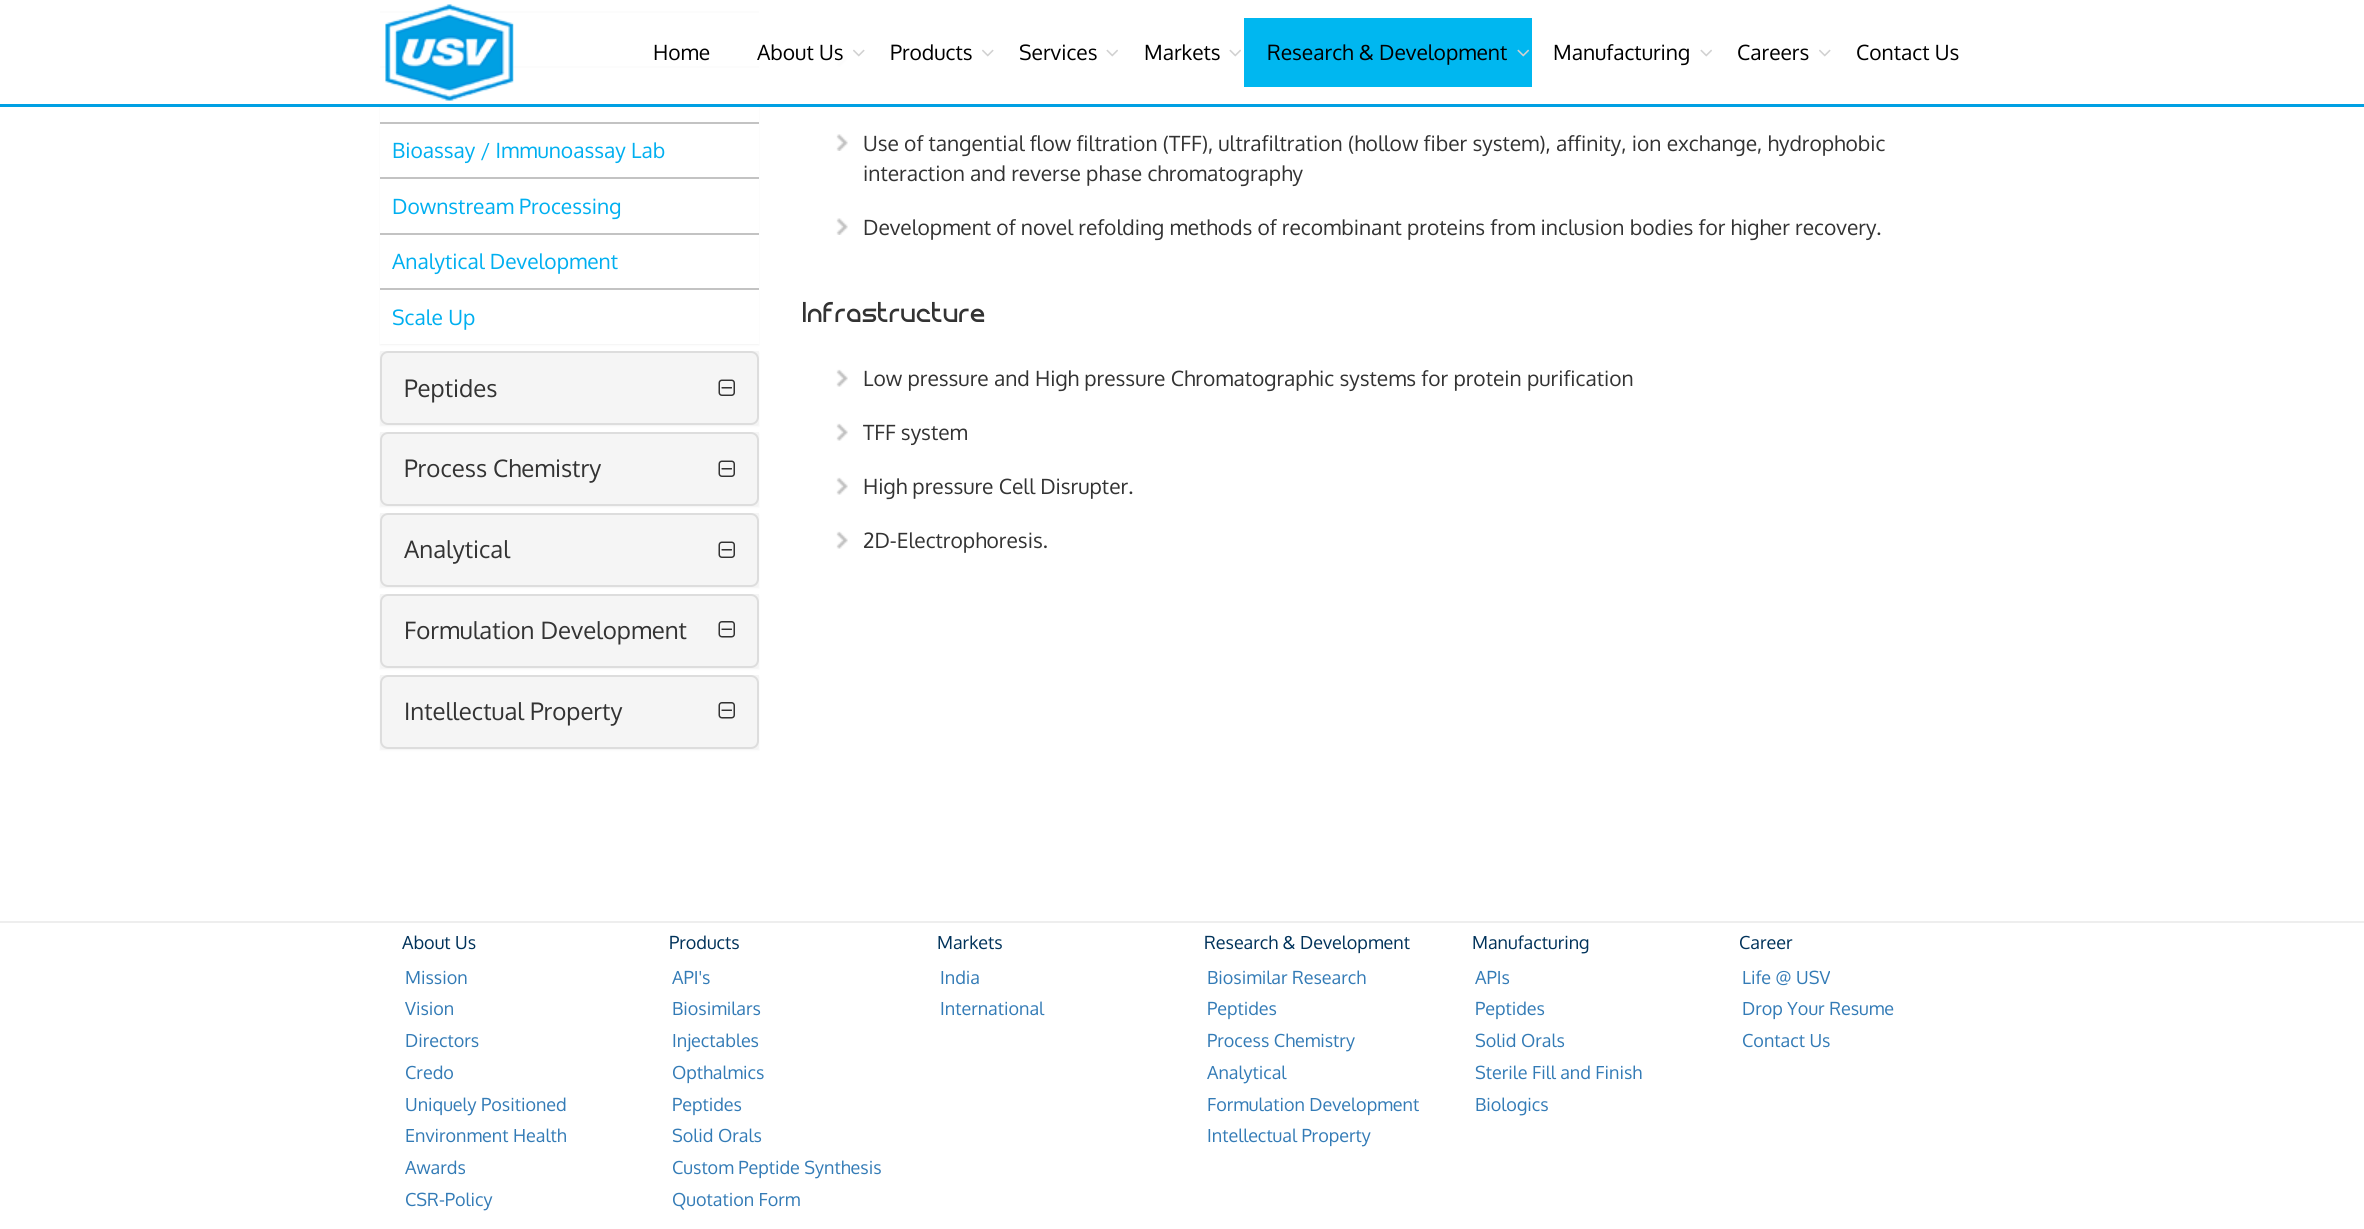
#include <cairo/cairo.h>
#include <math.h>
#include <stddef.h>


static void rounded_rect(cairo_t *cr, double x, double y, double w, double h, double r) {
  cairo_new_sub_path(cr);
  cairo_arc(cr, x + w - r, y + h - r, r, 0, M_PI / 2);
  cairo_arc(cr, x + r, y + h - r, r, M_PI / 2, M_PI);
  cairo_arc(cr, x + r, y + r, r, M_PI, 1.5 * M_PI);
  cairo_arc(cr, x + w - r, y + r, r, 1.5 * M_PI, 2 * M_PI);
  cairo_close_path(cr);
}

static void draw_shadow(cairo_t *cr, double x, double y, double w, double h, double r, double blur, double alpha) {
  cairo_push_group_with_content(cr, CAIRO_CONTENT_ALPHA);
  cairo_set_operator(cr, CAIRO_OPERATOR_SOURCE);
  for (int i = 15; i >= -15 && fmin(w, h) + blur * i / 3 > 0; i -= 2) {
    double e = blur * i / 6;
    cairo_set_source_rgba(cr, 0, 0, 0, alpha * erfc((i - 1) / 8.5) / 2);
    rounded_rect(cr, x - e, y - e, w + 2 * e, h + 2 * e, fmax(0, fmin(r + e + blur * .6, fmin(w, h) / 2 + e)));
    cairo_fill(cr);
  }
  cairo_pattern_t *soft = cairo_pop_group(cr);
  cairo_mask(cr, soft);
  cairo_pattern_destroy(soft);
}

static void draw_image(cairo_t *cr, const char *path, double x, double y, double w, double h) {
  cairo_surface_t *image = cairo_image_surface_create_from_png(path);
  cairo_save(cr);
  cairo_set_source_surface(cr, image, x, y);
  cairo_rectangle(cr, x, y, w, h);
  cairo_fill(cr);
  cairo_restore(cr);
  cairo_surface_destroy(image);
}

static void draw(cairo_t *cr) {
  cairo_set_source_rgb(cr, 1, 1, 1);
  cairo_paint(cr);
  cairo_set_source_rgb(cr, 0, 0, 0);
  draw_shadow(cr, 380, -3, 379, 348, 0, 1, 0.05);
  cairo_set_source_rgb(cr, 1, 1, 1);
  cairo_rectangle(cr, 380, 0, 379, 344);
  cairo_fill(cr);
  cairo_set_source_rgb(cr, 195 / 255.0, 195 / 255.0, 195 / 255.0);
  cairo_rectangle(cr, 380, 11, 379, 2);
  cairo_fill(cr);
  cairo_rectangle(cr, 380, 66, 379, 2);
  cairo_fill(cr);
  draw_image(cr, "images/11.png", 836, 50, 12, 17);
  cairo_set_source_rgba(cr, 1, 1, 1, 0.95);
  cairo_rectangle(cr, 379, 0, 469, 104);
  cairo_fill(cr);
  cairo_set_source_rgb(cr, 0, 160 / 255.0, 227 / 255.0);
  cairo_rectangle(cr, 0, 104, 2364, 3);
  cairo_fill(cr);
  draw_image(cr, "images/1.png", 385, 4, 129, 97);
  draw_image(cr, "images/2.png", 853, 49, 12, 8);
  draw_image(cr, "images/3.png", 982, 49, 12, 8);
  draw_image(cr, "images/4.png", 1106, 49, 12, 8);
  draw_image(cr, "images/5.png", 1229, 49, 12, 8);
  cairo_set_source_rgb(cr, 0, 183 / 255.0, 240 / 255.0);
  cairo_rectangle(cr, 1244, 18, 288, 69);
  cairo_fill(cr);
  draw_image(cr, "images/6.png", 1517, 49, 13, 8);
  draw_image(cr, "images/7.png", 1700, 49, 12, 8);
  draw_image(cr, "images/8.png", 1819, 49, 12, 8);
  cairo_set_source_rgb(cr, 195 / 255.0, 195 / 255.0, 195 / 255.0);
  cairo_rectangle(cr, 380, 122, 379, 2);
  cairo_fill(cr);
  cairo_rectangle(cr, 380, 177, 379, 2);
  cairo_fill(cr);
  cairo_rectangle(cr, 380, 233, 379, 2);
  cairo_fill(cr);
  cairo_rectangle(cr, 380, 288, 379, 2);
  cairo_fill(cr);
  cairo_set_source_rgb(cr, 0, 0, 0);
  draw_shadow(cr, 380, 353, 379, 73, 0, 1, 0.05);
  cairo_set_source_rgb(cr, 245 / 255.0, 245 / 255.0, 245 / 255.0);
  cairo_rectangle(cr, 380, 351, 379, 73);
  cairo_fill(cr);
  rounded_rect(cr, 381, 352, 377, 72, 7);
  cairo_set_source_rgb(cr, 221 / 255.0, 221 / 255.0, 221 / 255.0);
  cairo_stroke(cr);
  draw_image(cr, "images/9.png", 718, 379, 17, 17);
  cairo_set_source_rgb(cr, 0, 0, 0);
  draw_shadow(cr, 380, 434, 379, 73, 0, 1, 0.05);
  cairo_set_source_rgb(cr, 245 / 255.0, 245 / 255.0, 245 / 255.0);
  cairo_rectangle(cr, 380, 432, 379, 73);
  cairo_fill(cr);
  rounded_rect(cr, 381, 433, 377, 72, 7);
  cairo_set_source_rgb(cr, 221 / 255.0, 221 / 255.0, 221 / 255.0);
  cairo_stroke(cr);
  draw_image(cr, "images/9.png", 718, 460, 17, 17);
  cairo_set_source_rgb(cr, 0, 0, 0);
  draw_shadow(cr, 380, 515, 379, 73, 0, 1, 0.05);
  cairo_set_source_rgb(cr, 245 / 255.0, 245 / 255.0, 245 / 255.0);
  cairo_rectangle(cr, 380, 513, 379, 73);
  cairo_fill(cr);
  rounded_rect(cr, 381, 514, 377, 72, 7);
  cairo_set_source_rgb(cr, 221 / 255.0, 221 / 255.0, 221 / 255.0);
  cairo_stroke(cr);
  draw_image(cr, "images/9.png", 718, 541, 17, 17);
  cairo_set_source_rgb(cr, 0, 0, 0);
  draw_shadow(cr, 380, 596, 379, 73, 0, 1, 0.05);
  cairo_set_source_rgb(cr, 245 / 255.0, 245 / 255.0, 245 / 255.0);
  cairo_rectangle(cr, 380, 594, 379, 73);
  cairo_fill(cr);
  rounded_rect(cr, 381, 595, 377, 72, 7);
  cairo_set_source_rgb(cr, 221 / 255.0, 221 / 255.0, 221 / 255.0);
  cairo_stroke(cr);
  draw_image(cr, "images/10.png", 718, 621, 17, 17);
  cairo_set_source_rgb(cr, 0, 0, 0);
  draw_shadow(cr, 380, 677, 379, 73, 0, 1, 0.05);
  cairo_set_source_rgb(cr, 245 / 255.0, 245 / 255.0, 245 / 255.0);
  cairo_rectangle(cr, 380, 675, 379, 73);
  cairo_fill(cr);
  rounded_rect(cr, 381, 676, 377, 72, 7);
  cairo_set_source_rgb(cr, 221 / 255.0, 221 / 255.0, 221 / 255.0);
  cairo_stroke(cr);
  draw_image(cr, "images/10.png", 718, 702, 17, 17);
  draw_image(cr, "images/11.png", 836, 134, 12, 17);
  draw_image(cr, "images/11.png", 836, 218, 12, 17);
  draw_image(cr, "images/12.png", 836, 369, 12, 18);
  draw_image(cr, "images/12.png", 836, 423, 12, 18);
  draw_image(cr, "images/12.png", 836, 477, 12, 18);
  draw_image(cr, "images/12.png", 836, 531, 12, 18);
  cairo_set_source_rgb(cr, 238 / 255.0, 238 / 255.0, 238 / 255.0);
  cairo_rectangle(cr, 0, 921, 2364, 2);
  cairo_fill(cr);
  cairo_select_font_face(cr, "Oxygen", CAIRO_FONT_SLANT_NORMAL, CAIRO_FONT_WEIGHT_NORMAL);
  cairo_set_font_size(cr, 21);
  cairo_set_source_rgb(cr, 0, 0, 0);
  cairo_move_to(cr, 653, 60);
  cairo_show_text(cr, "Home");
  cairo_move_to(cr, 757, 60);
  cairo_show_text(cr, "About Us");
  cairo_move_to(cr, 890, 60);
  cairo_show_text(cr, "Products");
  cairo_move_to(cr, 1019, 60);
  cairo_show_text(cr, "Services");
  cairo_move_to(cr, 1144, 60);
  cairo_show_text(cr, "Markets");
  cairo_move_to(cr, 1267, 60);
  cairo_show_text(cr, "Research & Development");
  cairo_move_to(cr, 1553, 60);
  cairo_show_text(cr, "Manufacturing");
  cairo_move_to(cr, 1737, 60);
  cairo_show_text(cr, "Careers");
  cairo_move_to(cr, 1856, 60);
  cairo_show_text(cr, "Contact Us");
  cairo_set_source_rgb(cr, 0, 175 / 255.0, 240 / 255.0);
  cairo_move_to(cr, 392, 158);
  cairo_show_text(cr, "Bioassay / Immunoassay Lab");
  cairo_move_to(cr, 392, 214);
  cairo_show_text(cr, "Downstream Processing");
  cairo_move_to(cr, 392, 269);
  cairo_show_text(cr, "Analytical Development");
  cairo_move_to(cr, 392, 325);
  cairo_show_text(cr, "Scale Up");
  cairo_set_font_size(cr, 24);
  cairo_set_source_rgb(cr, 51 / 255.0, 51 / 255.0, 51 / 255.0);
  cairo_move_to(cr, 404, 397);
  cairo_show_text(cr, "Peptides");
  cairo_move_to(cr, 404, 477);
  cairo_show_text(cr, "Process Chemistry");
  cairo_move_to(cr, 404, 558);
  cairo_show_text(cr, "Analytical");
  cairo_move_to(cr, 404, 639);
  cairo_show_text(cr, "Formulation Development");
  cairo_move_to(cr, 404, 720);
  cairo_show_text(cr, "Intellectual Property");
  cairo_set_font_size(cr, 21);
  cairo_move_to(cr, 863, 151);
  cairo_show_text(cr, "Use of tangential flow filtration (TFF), ultrafiltration (hollow fiber system), affinity, ion exchange, hydrophobic");
  cairo_move_to(cr, 863, 181);
  cairo_show_text(cr, "interaction and reverse phase chromatography");
  cairo_move_to(cr, 863, 235);
  cairo_show_text(cr, "Development of novel refolding methods of recombinant proteins from inclusion bodies for higher recovery.");
  cairo_select_font_face(cr, "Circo", CAIRO_FONT_SLANT_NORMAL, CAIRO_FONT_WEIGHT_NORMAL);
  cairo_move_to(cr, 803, 322);
  cairo_show_text(cr, "Infrastructure");
  cairo_select_font_face(cr, "Oxygen", CAIRO_FONT_SLANT_NORMAL, CAIRO_FONT_WEIGHT_NORMAL);
  cairo_move_to(cr, 863, 386);
  cairo_show_text(cr, "Low pressure and High pressure Chromatographic systems for protein purification");
  cairo_move_to(cr, 863, 440);
  cairo_show_text(cr, "TFF system");
  cairo_move_to(cr, 863, 494);
  cairo_show_text(cr, "High pressure Cell Disrupter.");
  cairo_move_to(cr, 863, 548);
  cairo_show_text(cr, "2D-Electrophoresis.");
  cairo_set_font_size(cr, 18);
  cairo_set_source_rgb(cr, 0, 50 / 255.0, 90 / 255.0);
  cairo_move_to(cr, 402, 949);
  cairo_show_text(cr, "About Us");
  cairo_set_source_rgb(cr, 51 / 255.0, 123 / 255.0, 182 / 255.0);
  cairo_move_to(cr, 405, 984);
  cairo_show_text(cr, "Mission");
  cairo_move_to(cr, 405, 1015);
  cairo_show_text(cr, "Vision");
  cairo_move_to(cr, 405, 1047);
  cairo_show_text(cr, "Directors");
  cairo_move_to(cr, 405, 1079);
  cairo_show_text(cr, "Credo");
  cairo_move_to(cr, 405, 1111);
  cairo_show_text(cr, "Uniquely Positioned");
  cairo_move_to(cr, 405, 1142);
  cairo_show_text(cr, "Environment Health");
  cairo_move_to(cr, 405, 1174);
  cairo_show_text(cr, "Awards");
  cairo_move_to(cr, 405, 1206);
  cairo_show_text(cr, "CSR-Policy");
  cairo_set_source_rgb(cr, 0, 50 / 255.0, 90 / 255.0);
  cairo_move_to(cr, 669, 949);
  cairo_show_text(cr, "Products");
  cairo_set_source_rgb(cr, 51 / 255.0, 123 / 255.0, 182 / 255.0);
  cairo_move_to(cr, 672, 984);
  cairo_show_text(cr, "API's");
  cairo_move_to(cr, 672, 1015);
  cairo_show_text(cr, "Biosimilars");
  cairo_move_to(cr, 672, 1047);
  cairo_show_text(cr, "Injectables");
  cairo_move_to(cr, 672, 1079);
  cairo_show_text(cr, "Opthalmics");
  cairo_move_to(cr, 672, 1111);
  cairo_show_text(cr, "Peptides");
  cairo_move_to(cr, 672, 1142);
  cairo_show_text(cr, "Solid Orals");
  cairo_move_to(cr, 672, 1174);
  cairo_show_text(cr, "Custom Peptide Synthesis");
  cairo_move_to(cr, 672, 1206);
  cairo_show_text(cr, "Quotation Form");
  cairo_set_source_rgb(cr, 0, 50 / 255.0, 90 / 255.0);
  cairo_move_to(cr, 937, 949);
  cairo_show_text(cr, "Markets");
  cairo_set_source_rgb(cr, 51 / 255.0, 123 / 255.0, 182 / 255.0);
  cairo_move_to(cr, 940, 984);
  cairo_show_text(cr, "India");
  cairo_move_to(cr, 940, 1015);
  cairo_show_text(cr, "International");
  cairo_set_source_rgb(cr, 0, 50 / 255.0, 90 / 255.0);
  cairo_move_to(cr, 1204, 949);
  cairo_show_text(cr, "Research & Development");
  cairo_set_source_rgb(cr, 51 / 255.0, 123 / 255.0, 182 / 255.0);
  cairo_move_to(cr, 1207, 984);
  cairo_show_text(cr, "Biosimilar Research");
  cairo_move_to(cr, 1207, 1015);
  cairo_show_text(cr, "Peptides");
  cairo_move_to(cr, 1207, 1047);
  cairo_show_text(cr, "Process Chemistry");
  cairo_move_to(cr, 1207, 1079);
  cairo_show_text(cr, "Analytical");
  cairo_move_to(cr, 1207, 1111);
  cairo_show_text(cr, "Formulation Development");
  cairo_move_to(cr, 1207, 1142);
  cairo_show_text(cr, "Intellectual Property");
  cairo_set_source_rgb(cr, 0, 50 / 255.0, 90 / 255.0);
  cairo_move_to(cr, 1472, 949);
  cairo_show_text(cr, "Manufacturing");
  cairo_set_source_rgb(cr, 51 / 255.0, 123 / 255.0, 182 / 255.0);
  cairo_move_to(cr, 1475, 984);
  cairo_show_text(cr, "APIs");
  cairo_move_to(cr, 1475, 1015);
  cairo_show_text(cr, "Peptides");
  cairo_move_to(cr, 1475, 1047);
  cairo_show_text(cr, "Solid Orals");
  cairo_move_to(cr, 1475, 1079);
  cairo_show_text(cr, "Sterile Fill and Finish");
  cairo_move_to(cr, 1475, 1111);
  cairo_show_text(cr, "Biologics");
  cairo_set_source_rgb(cr, 0, 50 / 255.0, 90 / 255.0);
  cairo_move_to(cr, 1739, 949);
  cairo_show_text(cr, "Career");
  cairo_set_source_rgb(cr, 51 / 255.0, 123 / 255.0, 182 / 255.0);
  cairo_move_to(cr, 1742, 984);
  cairo_show_text(cr, "Life @ USV");
  cairo_move_to(cr, 1742, 1015);
  cairo_show_text(cr, "Drop Your Resume");
  cairo_move_to(cr, 1742, 1047);
  cairo_show_text(cr, "Contact Us");
}

int main(void) {
  cairo_surface_t *surface = cairo_image_surface_create(CAIRO_FORMAT_RGB24, 2364, 1229);
  cairo_t *cr = cairo_create(surface);
  cairo_font_options_t *options = cairo_font_options_create();
  cairo_font_options_set_hint_metrics(options, CAIRO_HINT_METRICS_OFF);
  cairo_font_options_set_hint_style(options, CAIRO_HINT_STYLE_NONE);
  cairo_set_font_options(cr, options);
  cairo_set_miter_limit(cr, 4);
  draw(cr);
  cairo_surface_write_to_png(surface, "out.png");
  cairo_font_options_destroy(options);
  cairo_destroy(cr);
  cairo_surface_destroy(surface);
  return 0;
}
